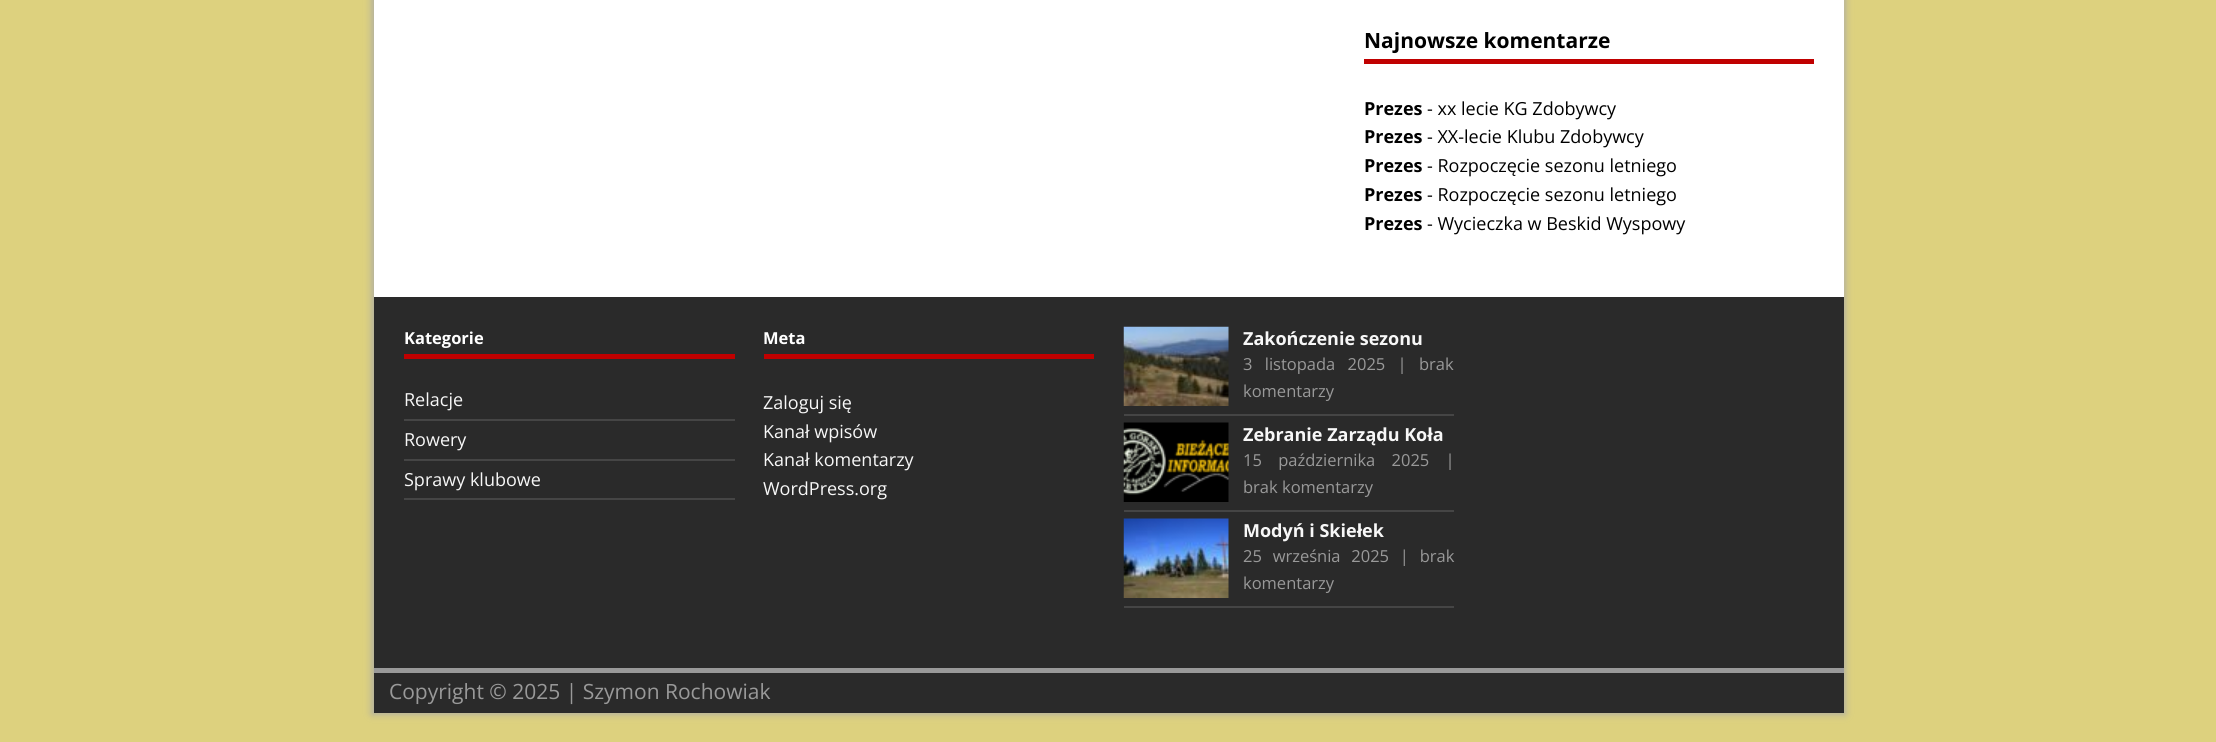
#include <cairo/cairo.h>
#include <math.h>
#include <stddef.h>


static void draw_spaced(cairo_t *cr, double x, double y, const char *s, double letter, double word) {
  cairo_move_to(cr, x, y);
  while (*s) {
    char ch[5] = {0};
    int n = 0;
    do ch[n++] = *s++; while ((*s & 0xC0) == 0x80);
    cairo_show_text(cr, ch);
    cairo_rel_move_to(cr, letter + word * (*ch == ' '), 0);
  }
}

static void rounded_rect(cairo_t *cr, double x, double y, double w, double h, double r) {
  cairo_new_sub_path(cr);
  cairo_arc(cr, x + w - r, y + h - r, r, 0, M_PI / 2);
  cairo_arc(cr, x + r, y + h - r, r, M_PI / 2, M_PI);
  cairo_arc(cr, x + r, y + r, r, M_PI, 1.5 * M_PI);
  cairo_arc(cr, x + w - r, y + r, r, 1.5 * M_PI, 2 * M_PI);
  cairo_close_path(cr);
}

static void draw_shadow(cairo_t *cr, double x, double y, double w, double h, double r, double blur, double alpha) {
  cairo_push_group_with_content(cr, CAIRO_CONTENT_ALPHA);
  cairo_set_operator(cr, CAIRO_OPERATOR_SOURCE);
  for (int i = 15; i >= -15 && fmin(w, h) + blur * i / 3 > 0; i -= 2) {
    double e = blur * i / 6;
    cairo_set_source_rgba(cr, 0, 0, 0, alpha * erfc((i - 1) / 8.5) / 2);
    rounded_rect(cr, x - e, y - e, w + 2 * e, h + 2 * e, fmax(0, fmin(r + e + blur * .6, fmin(w, h) / 2 + e)));
    cairo_fill(cr);
  }
  cairo_pattern_t *soft = cairo_pop_group(cr);
  cairo_mask(cr, soft);
  cairo_pattern_destroy(soft);
}

static void draw_image(cairo_t *cr, const char *path, double x, double y, double w, double h) {
  cairo_surface_t *image = cairo_image_surface_create_from_png(path);
  cairo_save(cr);
  cairo_set_source_surface(cr, image, x, y);
  cairo_rectangle(cr, x, y, w, h);
  cairo_fill(cr);
  cairo_restore(cr);
  cairo_surface_destroy(image);
}

static void draw(cairo_t *cr) {
  cairo_set_source_rgb(cr, 221 / 255.0, 209 / 255.0, 126 / 255.0);
  cairo_paint(cr);
  cairo_set_source_rgb(cr, 168 / 255.0, 168 / 255.0, 168 / 255.0);
  draw_shadow(cr, 372, -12, 1473, 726, 0, 4, 1);
  cairo_set_source_rgb(cr, 1, 1, 1);
  cairo_rectangle(cr, 374, 0, 1470, 297);
  cairo_fill(cr);
  cairo_set_source_rgb(cr, 192 / 255.0, 0, 0);
  cairo_rectangle(cr, 1364, 59, 450, 5);
  cairo_fill(cr);
  cairo_set_source_rgb(cr, 42 / 255.0, 42 / 255.0, 42 / 255.0);
  cairo_rectangle(cr, 374, 297, 1470, 371);
  cairo_fill(cr);
  cairo_set_source_rgb(cr, 192 / 255.0, 0, 0);
  cairo_rectangle(cr, 404, 354, 331, 5);
  cairo_fill(cr);
  cairo_set_source_rgb(cr, 69 / 255.0, 69 / 255.0, 69 / 255.0);
  cairo_rectangle(cr, 404, 419, 331, 2);
  cairo_fill(cr);
  cairo_rectangle(cr, 404, 459, 331, 2);
  cairo_fill(cr);
  cairo_rectangle(cr, 404, 498, 331, 2);
  cairo_fill(cr);
  cairo_set_source_rgb(cr, 192 / 255.0, 0, 0);
  cairo_rectangle(cr, 764, 354, 330, 5);
  cairo_fill(cr);
  cairo_set_source_rgb(cr, 69 / 255.0, 69 / 255.0, 69 / 255.0);
  cairo_rectangle(cr, 1124, 414, 330, 2);
  cairo_fill(cr);
  draw_image(cr, "images/1.png", 1123, 326, 106, 80);
  cairo_rectangle(cr, 1124, 510, 330, 2);
  cairo_fill(cr);
  draw_image(cr, "images/2.png", 1123, 422, 106, 80);
  cairo_rectangle(cr, 1124, 606, 330, 2);
  cairo_fill(cr);
  draw_image(cr, "images/3.png", 1123, 518, 106, 80);
  cairo_set_source_rgb(cr, 42 / 255.0, 42 / 255.0, 42 / 255.0);
  cairo_rectangle(cr, 374, 673, 1470, 40);
  cairo_fill(cr);
  cairo_set_source_rgb(cr, 153 / 255.0, 153 / 255.0, 153 / 255.0);
  cairo_rectangle(cr, 374, 668, 1470, 5);
  cairo_fill(cr);
  cairo_select_font_face(cr, "Open Sans", CAIRO_FONT_SLANT_NORMAL, CAIRO_FONT_WEIGHT_BOLD);
  cairo_set_font_size(cr, 21);
  cairo_set_source_rgb(cr, 0, 0, 0);
  cairo_move_to(cr, 1364, 48);
  cairo_show_text(cr, "Najnowsze komentarze");
  cairo_set_font_size(cr, 18);
  cairo_move_to(cr, 1364, 115);
  cairo_show_text(cr, "Prezes");
  cairo_select_font_face(cr, "Open Sans", CAIRO_FONT_SLANT_NORMAL, CAIRO_FONT_WEIGHT_NORMAL);
  cairo_move_to(cr, 1427, 115);
  cairo_show_text(cr, "- xx lecie KG Zdobywcy");
  cairo_select_font_face(cr, "Open Sans", CAIRO_FONT_SLANT_NORMAL, CAIRO_FONT_WEIGHT_BOLD);
  cairo_move_to(cr, 1364, 143);
  cairo_show_text(cr, "Prezes");
  cairo_select_font_face(cr, "Open Sans", CAIRO_FONT_SLANT_NORMAL, CAIRO_FONT_WEIGHT_NORMAL);
  cairo_move_to(cr, 1427, 143);
  cairo_show_text(cr, "- XX-lecie Klubu Zdobywcy");
  cairo_select_font_face(cr, "Open Sans", CAIRO_FONT_SLANT_NORMAL, CAIRO_FONT_WEIGHT_BOLD);
  cairo_move_to(cr, 1364, 172);
  cairo_show_text(cr, "Prezes");
  cairo_select_font_face(cr, "Open Sans", CAIRO_FONT_SLANT_NORMAL, CAIRO_FONT_WEIGHT_NORMAL);
  cairo_move_to(cr, 1427, 172);
  cairo_show_text(cr, "- Rozpoczęcie sezonu letniego");
  cairo_select_font_face(cr, "Open Sans", CAIRO_FONT_SLANT_NORMAL, CAIRO_FONT_WEIGHT_BOLD);
  cairo_move_to(cr, 1364, 201);
  cairo_show_text(cr, "Prezes");
  cairo_select_font_face(cr, "Open Sans", CAIRO_FONT_SLANT_NORMAL, CAIRO_FONT_WEIGHT_NORMAL);
  cairo_move_to(cr, 1427, 201);
  cairo_show_text(cr, "- Rozpoczęcie sezonu letniego");
  cairo_select_font_face(cr, "Open Sans", CAIRO_FONT_SLANT_NORMAL, CAIRO_FONT_WEIGHT_BOLD);
  cairo_move_to(cr, 1364, 230);
  cairo_show_text(cr, "Prezes");
  cairo_select_font_face(cr, "Open Sans", CAIRO_FONT_SLANT_NORMAL, CAIRO_FONT_WEIGHT_NORMAL);
  cairo_move_to(cr, 1427, 230);
  cairo_show_text(cr, "- Wycieczka w Beskid Wyspowy");
  cairo_select_font_face(cr, "Open Sans", CAIRO_FONT_SLANT_NORMAL, CAIRO_FONT_WEIGHT_BOLD);
  cairo_set_font_size(cr, 16.5);
  cairo_set_source_rgb(cr, 1, 1, 1);
  cairo_move_to(cr, 404, 344);
  cairo_show_text(cr, "Kategorie");
  cairo_select_font_face(cr, "Open Sans", CAIRO_FONT_SLANT_NORMAL, CAIRO_FONT_WEIGHT_NORMAL);
  cairo_set_font_size(cr, 18);
  cairo_set_source_rgb(cr, 247 / 255.0, 247 / 255.0, 247 / 255.0);
  cairo_move_to(cr, 404, 406);
  cairo_show_text(cr, "Relacje");
  cairo_move_to(cr, 404, 446);
  cairo_show_text(cr, "Rowery");
  cairo_move_to(cr, 404, 486);
  cairo_show_text(cr, "Sprawy klubowe");
  cairo_select_font_face(cr, "Open Sans", CAIRO_FONT_SLANT_NORMAL, CAIRO_FONT_WEIGHT_BOLD);
  cairo_set_font_size(cr, 16.5);
  cairo_set_source_rgb(cr, 1, 1, 1);
  cairo_move_to(cr, 763, 344);
  cairo_show_text(cr, "Meta");
  cairo_select_font_face(cr, "Open Sans", CAIRO_FONT_SLANT_NORMAL, CAIRO_FONT_WEIGHT_NORMAL);
  cairo_set_font_size(cr, 18);
  cairo_set_source_rgb(cr, 247 / 255.0, 247 / 255.0, 247 / 255.0);
  cairo_move_to(cr, 763, 409);
  cairo_show_text(cr, "Zaloguj się");
  cairo_move_to(cr, 763, 438);
  cairo_show_text(cr, "Kanał wpisów");
  cairo_move_to(cr, 763, 466);
  cairo_show_text(cr, "Kanał komentarzy");
  cairo_move_to(cr, 763, 495);
  cairo_show_text(cr, "WordPress.org");
  cairo_select_font_face(cr, "Open Sans", CAIRO_FONT_SLANT_NORMAL, CAIRO_FONT_WEIGHT_BOLD);
  cairo_move_to(cr, 1243, 345);
  cairo_show_text(cr, "Zakończenie sezonu");
  cairo_select_font_face(cr, "Open Sans", CAIRO_FONT_SLANT_NORMAL, CAIRO_FONT_WEIGHT_NORMAL);
  cairo_set_font_size(cr, 16.5);
  cairo_set_source_rgb(cr, 153 / 255.0, 153 / 255.0, 153 / 255.0);
  draw_spaced(cr, 1243, 370, "3 listopada 2025 | brak", 0, 8);
  cairo_move_to(cr, 1243, 397);
  cairo_show_text(cr, "komentarzy");
  cairo_select_font_face(cr, "Open Sans", CAIRO_FONT_SLANT_NORMAL, CAIRO_FONT_WEIGHT_BOLD);
  cairo_set_font_size(cr, 18);
  cairo_set_source_rgb(cr, 247 / 255.0, 247 / 255.0, 247 / 255.0);
  cairo_move_to(cr, 1243, 441);
  cairo_show_text(cr, "Zebranie Zarządu Koła");
  cairo_select_font_face(cr, "Open Sans", CAIRO_FONT_SLANT_NORMAL, CAIRO_FONT_WEIGHT_NORMAL);
  cairo_set_font_size(cr, 16.5);
  cairo_set_source_rgb(cr, 153 / 255.0, 153 / 255.0, 153 / 255.0);
  draw_spaced(cr, 1243, 466, "15 października 2025 |", 0, 12);
  cairo_move_to(cr, 1243, 493);
  cairo_show_text(cr, "brak komentarzy");
  cairo_select_font_face(cr, "Open Sans", CAIRO_FONT_SLANT_NORMAL, CAIRO_FONT_WEIGHT_BOLD);
  cairo_set_font_size(cr, 18);
  cairo_set_source_rgb(cr, 247 / 255.0, 247 / 255.0, 247 / 255.0);
  cairo_move_to(cr, 1243, 537);
  cairo_show_text(cr, "Modyń i Skiełek");
  cairo_select_font_face(cr, "Open Sans", CAIRO_FONT_SLANT_NORMAL, CAIRO_FONT_WEIGHT_NORMAL);
  cairo_set_font_size(cr, 16.5);
  cairo_set_source_rgb(cr, 153 / 255.0, 153 / 255.0, 153 / 255.0);
  draw_spaced(cr, 1243, 562, "25 września 2025 | brak", 0, 6.5);
  cairo_move_to(cr, 1243, 589);
  cairo_show_text(cr, "komentarzy");
  cairo_set_font_size(cr, 21);
  cairo_move_to(cr, 389, 699);
  cairo_show_text(cr, "Copyright © 2025 | Szymon Rochowiak");
}

int main(void) {
  cairo_surface_t *surface = cairo_image_surface_create(CAIRO_FORMAT_RGB24, 2216, 742);
  cairo_t *cr = cairo_create(surface);
  cairo_font_options_t *options = cairo_font_options_create();
  cairo_font_options_set_hint_metrics(options, CAIRO_HINT_METRICS_OFF);
  cairo_font_options_set_hint_style(options, CAIRO_HINT_STYLE_NONE);
  cairo_set_font_options(cr, options);
  cairo_set_miter_limit(cr, 4);
  draw(cr);
  cairo_surface_write_to_png(surface, "out.png");
  cairo_font_options_destroy(options);
  cairo_destroy(cr);
  cairo_surface_destroy(surface);
  return 0;
}
